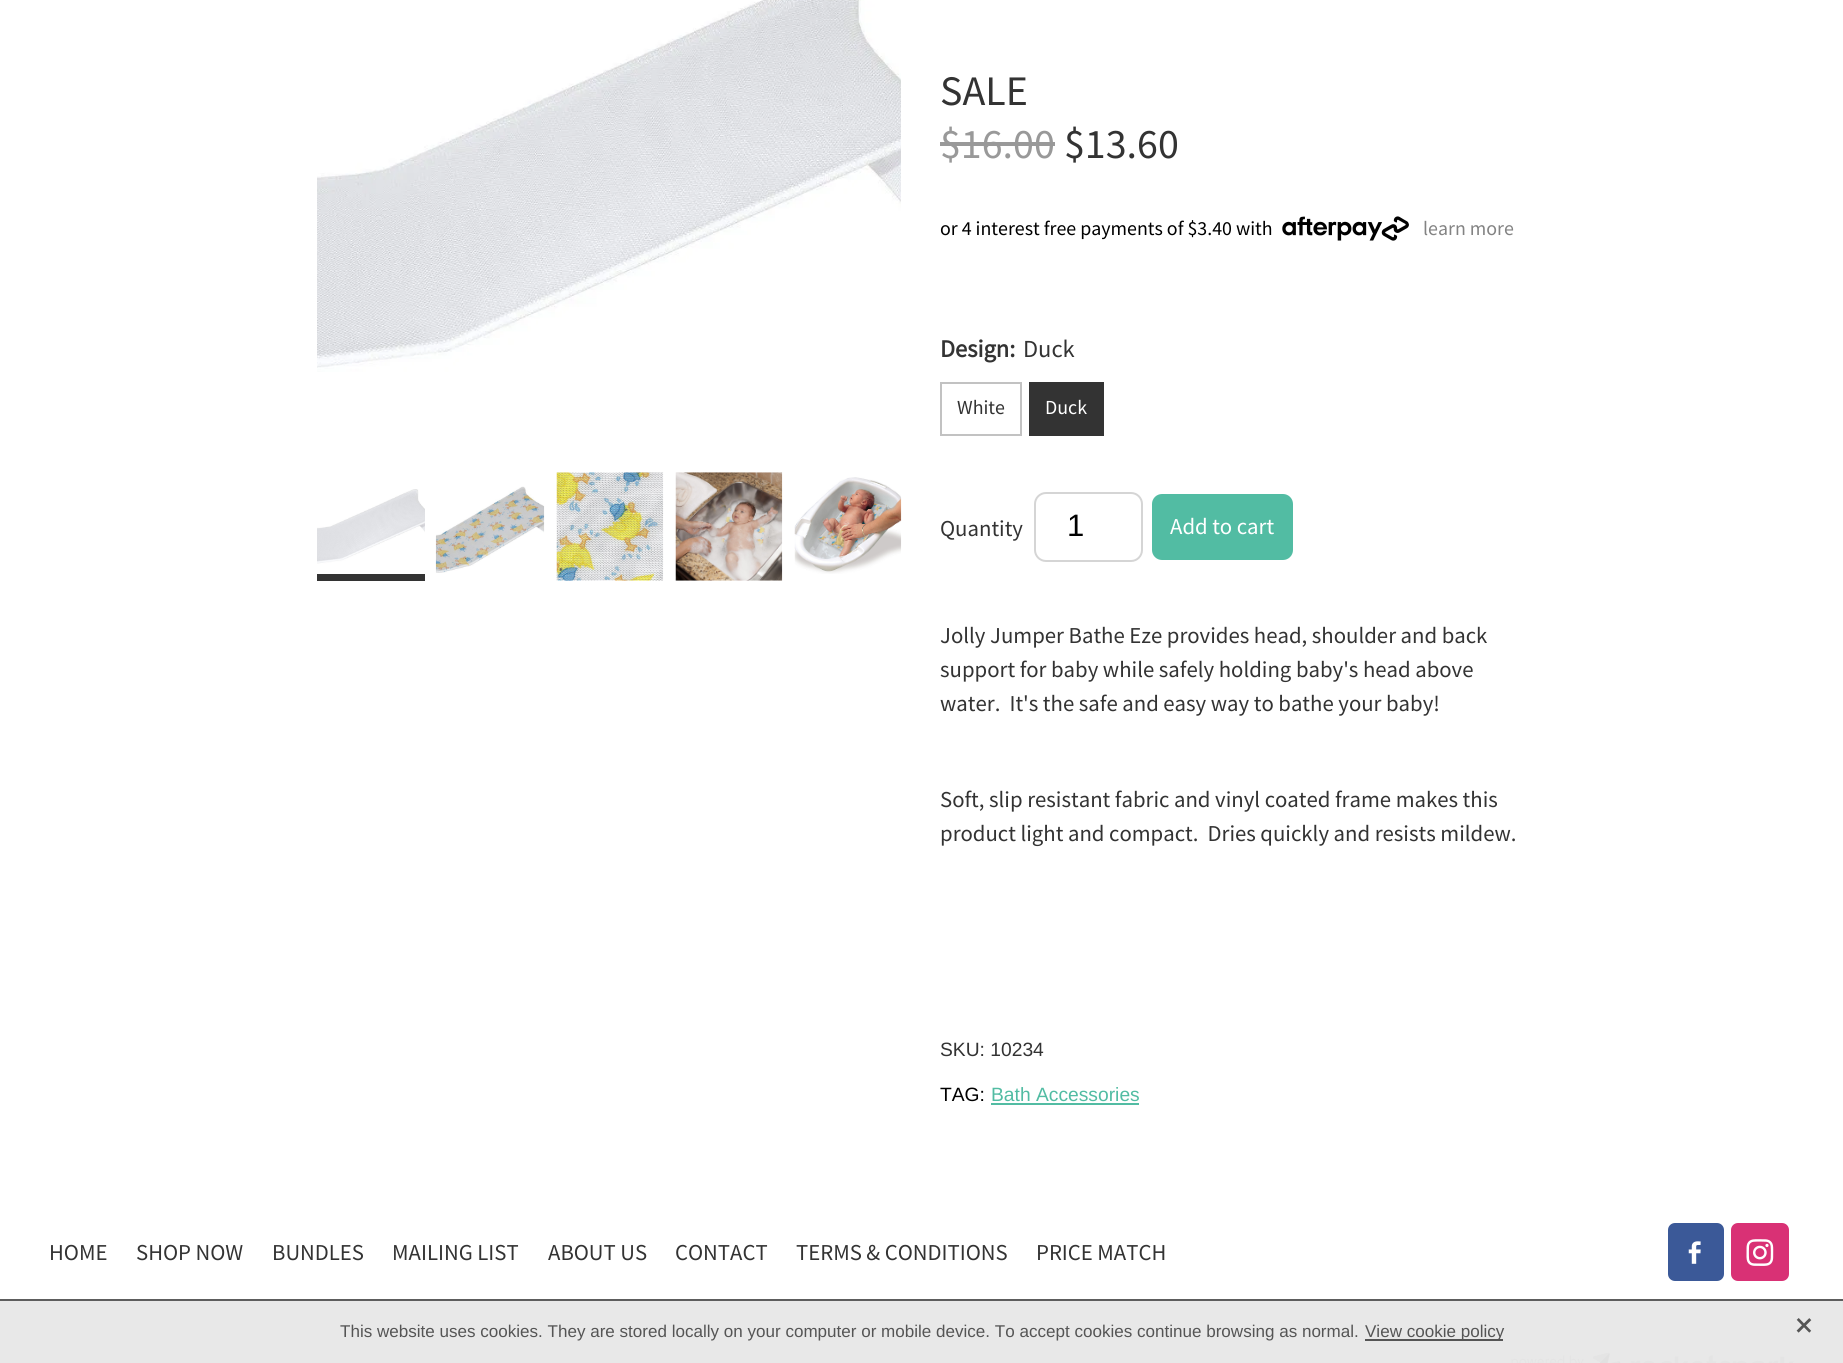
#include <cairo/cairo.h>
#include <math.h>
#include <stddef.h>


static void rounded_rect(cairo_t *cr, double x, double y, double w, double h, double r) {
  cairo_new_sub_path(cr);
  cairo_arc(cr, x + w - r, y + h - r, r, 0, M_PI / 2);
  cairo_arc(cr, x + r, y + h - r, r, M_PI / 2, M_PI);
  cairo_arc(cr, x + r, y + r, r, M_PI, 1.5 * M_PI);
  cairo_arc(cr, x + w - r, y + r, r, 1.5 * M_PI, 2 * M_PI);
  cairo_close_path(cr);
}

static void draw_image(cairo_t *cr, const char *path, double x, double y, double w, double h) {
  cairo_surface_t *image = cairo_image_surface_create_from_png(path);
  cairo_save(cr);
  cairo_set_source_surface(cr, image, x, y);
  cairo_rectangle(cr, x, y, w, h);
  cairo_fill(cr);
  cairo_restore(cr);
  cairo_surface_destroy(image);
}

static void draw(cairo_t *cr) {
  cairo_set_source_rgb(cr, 1, 1, 1);
  cairo_paint(cr);
  cairo_set_source_rgb(cr, 232 / 255.0, 232 / 255.0, 232 / 255.0);
  cairo_rectangle(cr, 0, 1301, 1843, 62);
  cairo_fill(cr);
  draw_image(cr, "images/1.png", 317, 0, 584, 372);
  draw_image(cr, "images/2.png", 317, 489, 108, 75);
  cairo_set_source_rgb(cr, 51 / 255.0, 51 / 255.0, 51 / 255.0);
  cairo_rectangle(cr, 317, 574, 108, 7);
  cairo_fill(cr);
  draw_image(cr, "images/3.png", 435, 486, 110, 87);
  draw_image(cr, "images/4.png", 556, 472, 108, 109);
  draw_image(cr, "images/5.png", 675, 472, 108, 109);
  draw_image(cr, "images/6.png", 794, 477, 108, 97);
  cairo_set_source_rgb(cr, 153 / 255.0, 153 / 255.0, 153 / 255.0);
  cairo_rectangle(cr, 940, 142, 115, 4);
  cairo_fill(cr);
  draw_image(cr, "images/7.png", 1282, 216, 127, 25);
  cairo_rectangle(cr, 941, 383, 80, 52);
  cairo_set_source_rgb(cr, 194 / 255.0, 194 / 255.0, 194 / 255.0);
  cairo_stroke(cr);
  cairo_set_source_rgb(cr, 51 / 255.0, 51 / 255.0, 51 / 255.0);
  cairo_rectangle(cr, 1029, 382, 75, 54);
  cairo_fill(cr);
  rounded_rect(cr, 1035, 493, 107, 68, 11);
  cairo_set_source_rgb(cr, 213 / 255.0, 213 / 255.0, 213 / 255.0);
  cairo_stroke(cr);
  cairo_set_source_rgb(cr, 82 / 255.0, 188 / 255.0, 163 / 255.0);
  rounded_rect(cr, 1151, 493, 143, 68, 11);
  cairo_fill_preserve(cr);
  cairo_set_source_rgb(cr, 1, 1, 1);
  cairo_stroke(cr);
  cairo_set_source_rgb(cr, 82 / 255.0, 188 / 255.0, 163 / 255.0);
  cairo_rectangle(cr, 991, 1103, 148, 2);
  cairo_fill(cr);
  cairo_set_source_rgb(cr, 59 / 255.0, 89 / 255.0, 152 / 255.0);
  rounded_rect(cr, 1668, 1223, 56, 58, 7);
  cairo_fill(cr);
  draw_image(cr, "images/8.png", 1688, 1241, 13, 23);
  cairo_set_source_rgb(cr, 217 / 255.0, 49 / 255.0, 117 / 255.0);
  rounded_rect(cr, 1731, 1223, 58, 58, 7);
  cairo_fill(cr);
  draw_image(cr, "images/9.png", 1746, 1239, 28, 27);
  draw_image(cr, "images/10.png", 1511, 1352, 283, 11);
  cairo_set_source_rgb(cr, 93 / 255.0, 93 / 255.0, 93 / 255.0);
  cairo_rectangle(cr, 0, 1299, 1843, 2);
  cairo_fill(cr);
  cairo_set_source_rgb(cr, 85 / 255.0, 85 / 255.0, 85 / 255.0);
  cairo_rectangle(cr, 1365, 1339, 138, 2);
  cairo_fill(cr);
  draw_image(cr, "images/11.png", 1796, 1318, 16, 15);
  cairo_select_font_face(cr, "Source Sans Pro", CAIRO_FONT_SLANT_NORMAL, CAIRO_FONT_WEIGHT_NORMAL);
  cairo_set_font_size(cr, 42);
  cairo_set_source_rgb(cr, 51 / 255.0, 51 / 255.0, 51 / 255.0);
  cairo_move_to(cr, 940, 105);
  cairo_show_text(cr, "SALE");
  cairo_set_source_rgb(cr, 153 / 255.0, 153 / 255.0, 153 / 255.0);
  cairo_move_to(cr, 940, 158);
  cairo_show_text(cr, "$16.00");
  cairo_set_source_rgb(cr, 51 / 255.0, 51 / 255.0, 51 / 255.0);
  cairo_move_to(cr, 1064, 158);
  cairo_show_text(cr, "$13.60");
  cairo_set_font_size(cr, 19.9);
  cairo_set_source_rgb(cr, 0, 0, 0);
  cairo_move_to(cr, 940, 235);
  cairo_show_text(cr, "or 4 interest free payments of $3.40 with");
  cairo_set_source_rgb(cr, 131 / 255.0, 131 / 255.0, 131 / 255.0);
  cairo_move_to(cr, 1423, 235);
  cairo_show_text(cr, "learn more");
  cairo_select_font_face(cr, "Source Sans Pro", CAIRO_FONT_SLANT_NORMAL, CAIRO_FONT_WEIGHT_BOLD);
  cairo_set_font_size(cr, 24.5);
  cairo_set_source_rgb(cr, 51 / 255.0, 51 / 255.0, 51 / 255.0);
  cairo_move_to(cr, 940, 357);
  cairo_show_text(cr, "Design:");
  cairo_select_font_face(cr, "Source Sans Pro", CAIRO_FONT_SLANT_NORMAL, CAIRO_FONT_WEIGHT_NORMAL);
  cairo_move_to(cr, 1023, 357);
  cairo_show_text(cr, "Duck");
  cairo_set_font_size(cr, 19.9);
  cairo_move_to(cr, 957, 414);
  cairo_show_text(cr, "White");
  cairo_set_source_rgb(cr, 1, 1, 1);
  cairo_move_to(cr, 1045, 414);
  cairo_show_text(cr, "Duck");
  cairo_set_font_size(cr, 22.75);
  cairo_set_source_rgb(cr, 51 / 255.0, 51 / 255.0, 51 / 255.0);
  cairo_move_to(cr, 940, 536);
  cairo_show_text(cr, "Quantity");
  cairo_select_font_face(cr, "Liberation Sans", CAIRO_FONT_SLANT_NORMAL, CAIRO_FONT_WEIGHT_NORMAL);
  cairo_set_font_size(cr, 31);
  cairo_set_source_rgb(cr, 0, 0, 0);
  cairo_move_to(cr, 1067, 536);
  cairo_show_text(cr, "1");
  cairo_select_font_face(cr, "Source Sans Pro", CAIRO_FONT_SLANT_NORMAL, CAIRO_FONT_WEIGHT_NORMAL);
  cairo_set_font_size(cr, 22.75);
  cairo_set_source_rgb(cr, 1, 1, 1);
  cairo_move_to(cr, 1170, 534);
  cairo_show_text(cr, "Add to cart");
  cairo_set_source_rgb(cr, 51 / 255.0, 51 / 255.0, 51 / 255.0);
  cairo_move_to(cr, 940, 643);
  cairo_show_text(cr, "Jolly Jumper Bathe Eze provides head, shoulder and back");
  cairo_move_to(cr, 940, 677);
  cairo_show_text(cr, "support for baby while safely holding baby's head above");
  cairo_move_to(cr, 940, 711);
  cairo_show_text(cr, "water.  It's the safe and easy way to bathe your baby!");
  cairo_move_to(cr, 940, 807);
  cairo_show_text(cr, "Soft, slip resistant fabric and vinyl coated frame makes this");
  cairo_move_to(cr, 940, 841);
  cairo_show_text(cr, "product light and compact.  Dries quickly and resists mildew.");
  cairo_select_font_face(cr, "Liberation Sans", CAIRO_FONT_SLANT_NORMAL, CAIRO_FONT_WEIGHT_NORMAL);
  cairo_set_font_size(cr, 19.25);
  cairo_move_to(cr, 940, 1056);
  cairo_show_text(cr, "SKU: 10234");
  cairo_set_source_rgb(cr, 0, 0, 0);
  cairo_move_to(cr, 940, 1101);
  cairo_show_text(cr, "TAG:");
  cairo_set_source_rgb(cr, 82 / 255.0, 188 / 255.0, 163 / 255.0);
  cairo_move_to(cr, 991, 1101);
  cairo_show_text(cr, "Bath Accessories");
  cairo_select_font_face(cr, "Source Sans Pro", CAIRO_FONT_SLANT_NORMAL, CAIRO_FONT_WEIGHT_NORMAL);
  cairo_set_font_size(cr, 22.75);
  cairo_set_source_rgb(cr, 51 / 255.0, 51 / 255.0, 51 / 255.0);
  cairo_move_to(cr, 49, 1260);
  cairo_show_text(cr, "HOME");
  cairo_move_to(cr, 136, 1260);
  cairo_show_text(cr, "SHOP NOW");
  cairo_move_to(cr, 272, 1260);
  cairo_show_text(cr, "BUNDLES");
  cairo_move_to(cr, 392, 1260);
  cairo_show_text(cr, "MAILING LIST");
  cairo_move_to(cr, 548, 1260);
  cairo_show_text(cr, "ABOUT US");
  cairo_move_to(cr, 675, 1260);
  cairo_show_text(cr, "CONTACT");
  cairo_move_to(cr, 796, 1260);
  cairo_show_text(cr, "TERMS & CONDITIONS");
  cairo_move_to(cr, 1036, 1260);
  cairo_show_text(cr, "PRICE MATCH");
  cairo_select_font_face(cr, "Liberation Sans", CAIRO_FONT_SLANT_NORMAL, CAIRO_FONT_WEIGHT_NORMAL);
  cairo_set_font_size(cr, 17.05);
  cairo_set_source_rgb(cr, 85 / 255.0, 85 / 255.0, 85 / 255.0);
  cairo_move_to(cr, 340, 1337);
  cairo_show_text(cr, "This website uses cookies. They are stored locally on your computer or mobile device. To accept cookies continue browsing as normal.");
  cairo_move_to(cr, 1365, 1337);
  cairo_show_text(cr, "View cookie policy");
}

int main(void) {
  cairo_surface_t *surface = cairo_image_surface_create(CAIRO_FORMAT_RGB24, 1843, 1363);
  cairo_t *cr = cairo_create(surface);
  cairo_font_options_t *options = cairo_font_options_create();
  cairo_font_options_set_hint_metrics(options, CAIRO_HINT_METRICS_OFF);
  cairo_font_options_set_hint_style(options, CAIRO_HINT_STYLE_NONE);
  cairo_set_font_options(cr, options);
  cairo_set_miter_limit(cr, 4);
  draw(cr);
  cairo_surface_write_to_png(surface, "out.png");
  cairo_font_options_destroy(options);
  cairo_destroy(cr);
  cairo_surface_destroy(surface);
  return 0;
}
